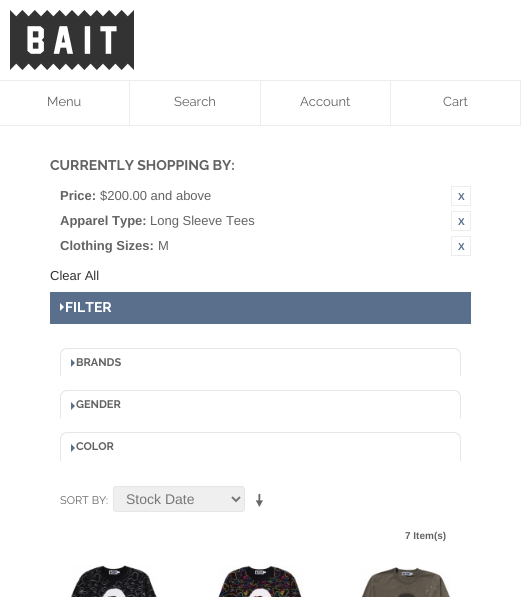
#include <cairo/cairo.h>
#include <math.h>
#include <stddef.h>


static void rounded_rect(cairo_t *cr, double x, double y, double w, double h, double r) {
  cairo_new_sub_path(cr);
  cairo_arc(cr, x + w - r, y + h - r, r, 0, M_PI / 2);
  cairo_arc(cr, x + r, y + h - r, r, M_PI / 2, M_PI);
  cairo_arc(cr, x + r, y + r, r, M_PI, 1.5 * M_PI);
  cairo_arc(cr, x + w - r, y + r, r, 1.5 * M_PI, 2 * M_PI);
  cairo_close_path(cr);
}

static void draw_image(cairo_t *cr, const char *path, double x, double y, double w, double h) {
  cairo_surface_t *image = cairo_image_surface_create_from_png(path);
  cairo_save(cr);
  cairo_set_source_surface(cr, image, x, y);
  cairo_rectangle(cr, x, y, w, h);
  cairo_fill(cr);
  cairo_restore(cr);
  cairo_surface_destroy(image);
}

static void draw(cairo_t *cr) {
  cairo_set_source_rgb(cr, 1, 1, 1);
  cairo_paint(cr);
  draw_image(cr, "images/1.png", 10, 10, 124, 60);
  cairo_set_source_rgb(cr, 237 / 255.0, 237 / 255.0, 237 / 255.0);
  cairo_rectangle(cr, 0, 80, 521, 1);
  cairo_fill(cr);
  cairo_rectangle(cr, 0, 125, 521, 1);
  cairo_fill(cr);
  cairo_rectangle(cr, 129, 81, 1, 44);
  cairo_fill(cr);
  cairo_rectangle(cr, 260, 81, 1, 44);
  cairo_fill(cr);
  cairo_rectangle(cr, 390, 81, 1, 44);
  cairo_fill(cr);
  cairo_rectangle(cr, 520, 81, 1, 44);
  cairo_fill(cr);
  cairo_rectangle(cr, 451.5, 186.5, 19, 19);
  cairo_set_line_width(cr, 1);
  cairo_stroke(cr);
  cairo_rectangle(cr, 451.5, 211.5, 19, 19);
  cairo_stroke(cr);
  cairo_rectangle(cr, 451.5, 236.5, 19, 19);
  cairo_stroke(cr);
  cairo_set_source_rgb(cr, 89 / 255.0, 111 / 255.0, 140 / 255.0);
  cairo_rectangle(cr, 50, 292, 421, 32);
  cairo_fill(cr);
  cairo_set_source_rgb(cr, 1, 1, 1);
  cairo_new_path(cr);
  cairo_move_to(cr, 60, 311);
  cairo_line_to(cr, 60, 303);
  cairo_line_to(cr, 64, 307);
  cairo_close_path(cr);
  cairo_fill(cr);
  cairo_set_source_rgb(cr, 230 / 255.0, 230 / 255.0, 230 / 255.0);
  cairo_set_fill_rule(cr, CAIRO_FILL_RULE_EVEN_ODD);
  cairo_new_path(cr);
  cairo_move_to(cr, 67, 348);
  cairo_line_to(cr, 454, 348);
  cairo_curve_to(cr, 458, 348, 461, 351, 461, 355);
  cairo_line_to(cr, 461, 376);
  cairo_line_to(cr, 60, 376);
  cairo_line_to(cr, 60, 355);
  cairo_curve_to(cr, 60, 351, 63, 348, 67, 348);
  cairo_close_path(cr);
  cairo_move_to(cr, 67, 349);
  cairo_line_to(cr, 454, 349);
  cairo_curve_to(cr, 457, 349, 460, 352, 460, 355);
  cairo_line_to(cr, 460, 376);
  cairo_line_to(cr, 61, 376);
  cairo_line_to(cr, 61, 355);
  cairo_curve_to(cr, 61, 352, 64, 349, 67, 349);
  cairo_close_path(cr);
  cairo_fill(cr);
  cairo_set_source_rgb(cr, 89 / 255.0, 111 / 255.0, 140 / 255.0);
  cairo_set_fill_rule(cr, CAIRO_FILL_RULE_WINDING);
  cairo_new_path(cr);
  cairo_move_to(cr, 71, 367);
  cairo_line_to(cr, 71, 359);
  cairo_line_to(cr, 75, 363);
  cairo_close_path(cr);
  cairo_fill(cr);
  cairo_set_source_rgb(cr, 230 / 255.0, 230 / 255.0, 230 / 255.0);
  cairo_set_fill_rule(cr, CAIRO_FILL_RULE_EVEN_ODD);
  cairo_new_path(cr);
  cairo_move_to(cr, 67, 390);
  cairo_line_to(cr, 454, 390);
  cairo_curve_to(cr, 458, 390, 461, 393, 461, 397);
  cairo_line_to(cr, 461, 418);
  cairo_line_to(cr, 60, 418);
  cairo_line_to(cr, 60, 397);
  cairo_curve_to(cr, 60, 393, 63, 390, 67, 390);
  cairo_close_path(cr);
  cairo_move_to(cr, 67, 391);
  cairo_line_to(cr, 454, 391);
  cairo_curve_to(cr, 457, 391, 460, 394, 460, 397);
  cairo_line_to(cr, 460, 418);
  cairo_line_to(cr, 61, 418);
  cairo_line_to(cr, 61, 397);
  cairo_curve_to(cr, 61, 394, 64, 391, 67, 391);
  cairo_close_path(cr);
  cairo_fill(cr);
  cairo_set_source_rgb(cr, 89 / 255.0, 111 / 255.0, 140 / 255.0);
  cairo_set_fill_rule(cr, CAIRO_FILL_RULE_WINDING);
  cairo_new_path(cr);
  cairo_move_to(cr, 71, 410);
  cairo_line_to(cr, 71, 402);
  cairo_line_to(cr, 75, 406);
  cairo_close_path(cr);
  cairo_fill(cr);
  cairo_set_source_rgb(cr, 230 / 255.0, 230 / 255.0, 230 / 255.0);
  cairo_set_fill_rule(cr, CAIRO_FILL_RULE_EVEN_ODD);
  cairo_new_path(cr);
  cairo_move_to(cr, 67, 432);
  cairo_line_to(cr, 454, 432);
  cairo_curve_to(cr, 458, 432, 461, 435, 461, 439);
  cairo_line_to(cr, 461, 461);
  cairo_line_to(cr, 60, 461);
  cairo_line_to(cr, 60, 439);
  cairo_curve_to(cr, 60, 435, 63, 432, 67, 432);
  cairo_close_path(cr);
  cairo_move_to(cr, 67, 433);
  cairo_line_to(cr, 454, 433);
  cairo_curve_to(cr, 457, 433, 460, 436, 460, 439);
  cairo_line_to(cr, 460, 461);
  cairo_line_to(cr, 61, 461);
  cairo_line_to(cr, 61, 439);
  cairo_curve_to(cr, 61, 436, 64, 433, 67, 433);
  cairo_close_path(cr);
  cairo_fill(cr);
  cairo_set_source_rgb(cr, 89 / 255.0, 111 / 255.0, 140 / 255.0);
  cairo_set_fill_rule(cr, CAIRO_FILL_RULE_WINDING);
  cairo_new_path(cr);
  cairo_move_to(cr, 71, 452);
  cairo_line_to(cr, 71, 444);
  cairo_line_to(cr, 75, 448);
  cairo_close_path(cr);
  cairo_fill(cr);
  cairo_set_source_rgb(cr, 239 / 255.0, 239 / 255.0, 239 / 255.0);
  rounded_rect(cr, 113.5, 486.5, 131, 25, 2.5);
  cairo_fill_preserve(cr);
  cairo_set_source_rgb(cr, 230 / 255.0, 230 / 255.0, 230 / 255.0);
  cairo_stroke(cr);
  cairo_new_path(cr);
  cairo_move_to(cr, 232, 497);
  cairo_line_to(cr, 236, 501);
  cairo_line_to(cr, 240, 497);
  cairo_set_source_rgb(cr, 119 / 255.0, 119 / 255.0, 119 / 255.0);
  cairo_set_line_width(cr, 2);
  cairo_stroke(cr);
  draw_image(cr, "images/2.png", 255, 493, 8, 14);
  draw_image(cr, "images/3.png", 71, 565, 86, 32);
  draw_image(cr, "images/4.png", 218, 565, 85, 32);
  draw_image(cr, "images/5.png", 361, 567, 90, 30);
  cairo_select_font_face(cr, "Raleway", CAIRO_FONT_SLANT_NORMAL, CAIRO_FONT_WEIGHT_NORMAL);
  cairo_set_font_size(cr, 13);
  cairo_set_source_rgb(cr, 99 / 255.0, 99 / 255.0, 99 / 255.0);
  cairo_move_to(cr, 47, 106);
  cairo_show_text(cr, "Menu");
  cairo_move_to(cr, 174, 106);
  cairo_show_text(cr, "Search");
  cairo_move_to(cr, 300, 106);
  cairo_show_text(cr, "Account");
  cairo_move_to(cr, 443, 106);
  cairo_show_text(cr, "Cart");
  cairo_select_font_face(cr, "Raleway", CAIRO_FONT_SLANT_NORMAL, CAIRO_FONT_WEIGHT_BOLD);
  cairo_set_font_size(cr, 14);
  cairo_move_to(cr, 50, 170);
  cairo_show_text(cr, "CURRENTLY SHOPPING BY:");
  cairo_select_font_face(cr, "Liberation Sans", CAIRO_FONT_SLANT_NORMAL, CAIRO_FONT_WEIGHT_BOLD);
  cairo_set_font_size(cr, 13);
  cairo_move_to(cr, 60, 200);
  cairo_show_text(cr, "Price:");
  cairo_select_font_face(cr, "Liberation Sans", CAIRO_FONT_SLANT_NORMAL, CAIRO_FONT_WEIGHT_NORMAL);
  cairo_move_to(cr, 100, 200);
  cairo_show_text(cr, "$200.00 and above");
  cairo_select_font_face(cr, "Liberation Sans", CAIRO_FONT_SLANT_NORMAL, CAIRO_FONT_WEIGHT_BOLD);
  cairo_set_font_size(cr, 10);
  cairo_set_source_rgb(cr, 89 / 255.0, 111 / 255.0, 140 / 255.0);
  cairo_move_to(cr, 458, 200);
  cairo_show_text(cr, "X");
  cairo_set_font_size(cr, 13);
  cairo_set_source_rgb(cr, 99 / 255.0, 99 / 255.0, 99 / 255.0);
  cairo_move_to(cr, 60, 225);
  cairo_show_text(cr, "Apparel Type:");
  cairo_select_font_face(cr, "Liberation Sans", CAIRO_FONT_SLANT_NORMAL, CAIRO_FONT_WEIGHT_NORMAL);
  cairo_move_to(cr, 150, 225);
  cairo_show_text(cr, "Long Sleeve Tees");
  cairo_select_font_face(cr, "Liberation Sans", CAIRO_FONT_SLANT_NORMAL, CAIRO_FONT_WEIGHT_BOLD);
  cairo_set_font_size(cr, 10);
  cairo_set_source_rgb(cr, 89 / 255.0, 111 / 255.0, 140 / 255.0);
  cairo_move_to(cr, 458, 225);
  cairo_show_text(cr, "X");
  cairo_set_font_size(cr, 13);
  cairo_set_source_rgb(cr, 99 / 255.0, 99 / 255.0, 99 / 255.0);
  cairo_move_to(cr, 60, 250);
  cairo_show_text(cr, "Clothing Sizes:");
  cairo_select_font_face(cr, "Liberation Sans", CAIRO_FONT_SLANT_NORMAL, CAIRO_FONT_WEIGHT_NORMAL);
  cairo_move_to(cr, 158, 250);
  cairo_show_text(cr, "M");
  cairo_select_font_face(cr, "Liberation Sans", CAIRO_FONT_SLANT_NORMAL, CAIRO_FONT_WEIGHT_BOLD);
  cairo_set_font_size(cr, 10);
  cairo_set_source_rgb(cr, 89 / 255.0, 111 / 255.0, 140 / 255.0);
  cairo_move_to(cr, 458, 250);
  cairo_show_text(cr, "X");
  cairo_select_font_face(cr, "Liberation Sans", CAIRO_FONT_SLANT_NORMAL, CAIRO_FONT_WEIGHT_NORMAL);
  cairo_set_font_size(cr, 13);
  cairo_set_source_rgb(cr, 51 / 255.0, 51 / 255.0, 51 / 255.0);
  cairo_move_to(cr, 50, 280);
  cairo_show_text(cr, "Clear All");
  cairo_select_font_face(cr, "Raleway", CAIRO_FONT_SLANT_NORMAL, CAIRO_FONT_WEIGHT_BOLD);
  cairo_set_font_size(cr, 14);
  cairo_set_source_rgb(cr, 1, 1, 1);
  cairo_move_to(cr, 65, 312);
  cairo_show_text(cr, "FILTER");
  cairo_set_font_size(cr, 11);
  cairo_set_source_rgb(cr, 99 / 255.0, 99 / 255.0, 99 / 255.0);
  cairo_move_to(cr, 76, 366);
  cairo_show_text(cr, "BRANDS");
  cairo_move_to(cr, 76, 408);
  cairo_show_text(cr, "GENDER");
  cairo_move_to(cr, 76, 450);
  cairo_show_text(cr, "COLOR");
  cairo_select_font_face(cr, "Raleway", CAIRO_FONT_SLANT_NORMAL, CAIRO_FONT_WEIGHT_NORMAL);
  cairo_move_to(cr, 60, 504);
  cairo_show_text(cr, "SORT BY:");
  cairo_select_font_face(cr, "Liberation Sans", CAIRO_FONT_SLANT_NORMAL, CAIRO_FONT_WEIGHT_NORMAL);
  cairo_set_font_size(cr, 14);
  cairo_set_source_rgb(cr, 119 / 255.0, 119 / 255.0, 119 / 255.0);
  cairo_move_to(cr, 126, 504);
  cairo_show_text(cr, "Stock Date");
  cairo_select_font_face(cr, "Liberation Sans", CAIRO_FONT_SLANT_NORMAL, CAIRO_FONT_WEIGHT_BOLD);
  cairo_set_font_size(cr, 10);
  cairo_set_source_rgb(cr, 99 / 255.0, 99 / 255.0, 99 / 255.0);
  cairo_move_to(cr, 405, 539);
  cairo_show_text(cr, "7 Item(s)");
}

int main(void) {
  cairo_surface_t *surface = cairo_image_surface_create(CAIRO_FORMAT_RGB24, 521, 597);
  cairo_t *cr = cairo_create(surface);
  cairo_font_options_t *options = cairo_font_options_create();
  cairo_font_options_set_hint_metrics(options, CAIRO_HINT_METRICS_OFF);
  cairo_font_options_set_hint_style(options, CAIRO_HINT_STYLE_NONE);
  cairo_set_font_options(cr, options);
  cairo_set_miter_limit(cr, 4);
  draw(cr);
  cairo_surface_write_to_png(surface, "out.png");
  cairo_font_options_destroy(options);
  cairo_destroy(cr);
  cairo_surface_destroy(surface);
  return 0;
}
